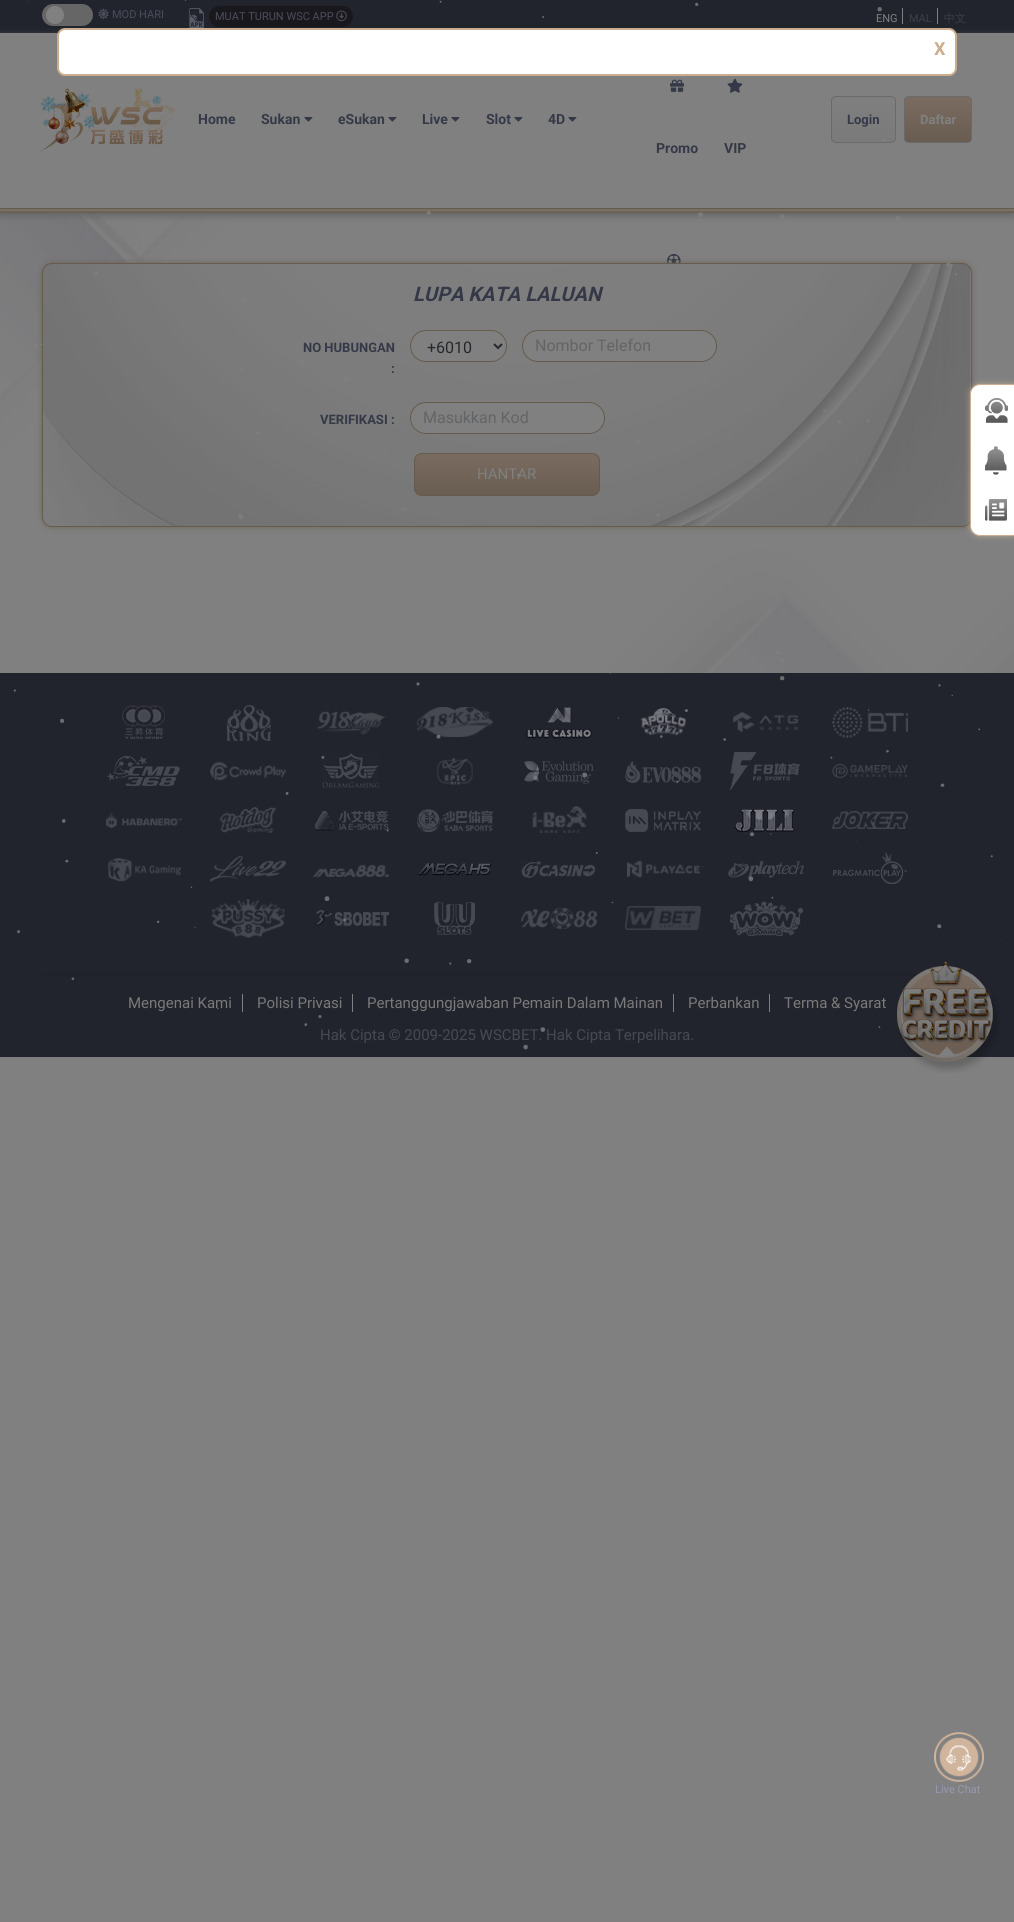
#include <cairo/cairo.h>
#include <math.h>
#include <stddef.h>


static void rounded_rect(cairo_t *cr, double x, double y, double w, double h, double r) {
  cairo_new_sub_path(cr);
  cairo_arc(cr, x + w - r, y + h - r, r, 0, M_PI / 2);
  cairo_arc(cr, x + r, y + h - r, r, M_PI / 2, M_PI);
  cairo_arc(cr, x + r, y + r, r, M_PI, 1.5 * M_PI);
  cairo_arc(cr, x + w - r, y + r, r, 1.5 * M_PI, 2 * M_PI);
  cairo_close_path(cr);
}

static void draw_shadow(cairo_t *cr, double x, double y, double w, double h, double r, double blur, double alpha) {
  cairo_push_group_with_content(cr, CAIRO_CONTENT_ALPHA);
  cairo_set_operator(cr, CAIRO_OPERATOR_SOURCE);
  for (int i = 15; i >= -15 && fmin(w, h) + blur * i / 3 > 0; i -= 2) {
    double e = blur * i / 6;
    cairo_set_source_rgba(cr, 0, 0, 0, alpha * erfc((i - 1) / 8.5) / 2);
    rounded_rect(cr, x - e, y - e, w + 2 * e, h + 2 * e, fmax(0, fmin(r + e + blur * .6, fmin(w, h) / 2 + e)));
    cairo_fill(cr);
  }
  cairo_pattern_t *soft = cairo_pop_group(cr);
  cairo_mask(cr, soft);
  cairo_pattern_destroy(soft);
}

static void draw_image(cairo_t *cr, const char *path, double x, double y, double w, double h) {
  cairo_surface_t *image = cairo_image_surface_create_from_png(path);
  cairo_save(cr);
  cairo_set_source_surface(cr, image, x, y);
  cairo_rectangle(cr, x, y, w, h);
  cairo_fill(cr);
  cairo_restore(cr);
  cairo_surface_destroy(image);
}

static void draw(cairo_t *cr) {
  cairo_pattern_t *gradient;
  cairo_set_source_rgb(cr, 128 / 255.0, 128 / 255.0, 128 / 255.0);
  cairo_paint(cr);
  cairo_set_source_rgb(cr, 34 / 255.0, 36 / 255.0, 45 / 255.0);
  cairo_rectangle(cr, 0, 0, 1014, 33);
  cairo_fill(cr);
  cairo_set_source_rgb(cr, 102 / 255.0, 102 / 255.0, 102 / 255.0);
  rounded_rect(cr, 42, 4, 51, 22, 11);
  cairo_fill(cr);
  cairo_set_source_rgb(cr, 128 / 255.0, 128 / 255.0, 128 / 255.0);
  cairo_arc(cr, 55, 15, 9, 0, 2 * M_PI);
  cairo_fill(cr);
  draw_image(cr, "images/2.png", 98, 8, 11, 12);
  draw_image(cr, "images/3.png", 189, 8, 15, 20);
  cairo_set_source_rgb(cr, 25 / 255.0, 24 / 255.0, 28 / 255.0);
  rounded_rect(cr, 209, 6, 144, 21, 10.5);
  cairo_fill(cr);
  draw_image(cr, "images/4.png", 336, 10, 11, 12);
  cairo_set_source_rgb(cr, 128 / 255.0, 128 / 255.0, 128 / 255.0);
  cairo_rectangle(cr, 902, 8, 1, 16);
  cairo_fill(cr);
  cairo_rectangle(cr, 937, 8, 1, 16);
  cairo_fill(cr);
  draw_image(cr, "images/10.png", 0, 213, 1014, 460);
  cairo_save(cr);
  cairo_set_fill_rule(cr, CAIRO_FILL_RULE_EVEN_ODD);
  cairo_new_path(cr);
  cairo_move_to(cr, 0, 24);
  cairo_line_to(cr, 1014, 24);
  cairo_line_to(cr, 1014, 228);
  cairo_line_to(cr, 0, 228);
  cairo_close_path(cr);
  cairo_move_to(cr, 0, 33);
  cairo_line_to(cr, 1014, 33);
  cairo_line_to(cr, 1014, 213);
  cairo_line_to(cr, 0, 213);
  cairo_close_path(cr);
  cairo_clip(cr);
  cairo_set_source_rgb(cr, 102 / 255.0, 102 / 255.0, 102 / 255.0);
  draw_shadow(cr, 0, 36, 1014, 180, 0, 3.5, 1);
  cairo_restore(cr);
  draw_image(cr, "images/5.png", 38, 88, 137, 65);
  draw_image(cr, "images/6.png", 304, 117, 9, 5);
  draw_image(cr, "images/6.png", 388, 117, 9, 5);
  draw_image(cr, "images/6.png", 451, 117, 9, 5);
  draw_image(cr, "images/6.png", 514, 117, 9, 5);
  draw_image(cr, "images/6.png", 568, 117, 9, 5);
  draw_image(cr, "images/7.png", 670, 79, 14, 13);
  draw_image(cr, "images/8.png", 727, 78, 16, 15);
  draw_image(cr, "images/9.png", 667, 254, 14, 9);
  cairo_save(cr);
  rounded_rect(cr, 831, 96, 65, 47, 5);
  cairo_clip(cr);
  gradient = cairo_pattern_create_linear(864, 97, 864, 142);
  cairo_pattern_add_color_stop_rgba(gradient, 0.05, 127 / 255.0, 127 / 255.0, 127 / 255.0, 1);
  cairo_pattern_add_color_stop_rgba(gradient, 1, 122 / 255.0, 122 / 255.0, 122 / 255.0, 1);
  cairo_set_source(cr, gradient);
  cairo_pattern_destroy(gradient);
  cairo_rectangle(cr, 831, 97, 65, 45);
  cairo_fill(cr);
  cairo_restore(cr);
  rounded_rect(cr, 831.5, 96.5, 64, 46, 4.5);
  cairo_set_source_rgb(cr, 106 / 255.0, 106 / 255.0, 106 / 255.0);
  cairo_set_line_width(cr, 1);
  cairo_stroke(cr);
  cairo_save(cr);
  rounded_rect(cr, 904, 96, 68, 47, 5);
  cairo_clip(cr);
  gradient = cairo_pattern_create_linear(938, 97, 938, 142);
  cairo_pattern_add_color_stop_rgba(gradient, 0.05, 121 / 255.0, 107 / 255.0, 96 / 255.0, 1);
  cairo_pattern_add_color_stop_rgba(gradient, 1, 105 / 255.0, 92 / 255.0, 80 / 255.0, 1);
  cairo_set_source(cr, gradient);
  cairo_pattern_destroy(gradient);
  cairo_rectangle(cr, 904, 97, 68, 45);
  cairo_fill(cr);
  cairo_restore(cr);
  rounded_rect(cr, 904.5, 96.5, 67, 46, 4.5);
  cairo_stroke(cr);
  gradient = cairo_pattern_create_linear(507, 208, 507, 213);
  cairo_pattern_add_color_stop_rgba(gradient, 0.1, 101 / 255.0, 91 / 255.0, 77 / 255.0, 1);
  cairo_pattern_add_color_stop_rgba(gradient, 0.35, 124 / 255.0, 118 / 255.0, 106 / 255.0, 1);
  cairo_pattern_add_color_stop_rgba(gradient, 1, 101 / 255.0, 91 / 255.0, 77 / 255.0, 1);
  cairo_set_source(cr, gradient);
  cairo_pattern_destroy(gradient);
  cairo_rectangle(cr, 0, 208, 1014, 5);
  cairo_fill(cr);
  cairo_set_source_rgb(cr, 102 / 255.0, 91 / 255.0, 76 / 255.0);
  draw_shadow(cr, 42, 263, 930, 264, 10, 3, 0.7);
  draw_image(cr, "images/11.png", 43, 263, 928, 264);
  rounded_rect(cr, 42.5, 263.5, 929, 263, 9.5);
  cairo_set_source_rgb(cr, 102 / 255.0, 91 / 255.0, 76 / 255.0);
  cairo_stroke(cr);
  cairo_set_source_rgb(cr, 128 / 255.0, 128 / 255.0, 128 / 255.0);
  rounded_rect(cr, 410.5, 330.5, 96, 31, 15.5);
  cairo_fill_preserve(cr);
  cairo_set_source_rgb(cr, 102 / 255.0, 91 / 255.0, 76 / 255.0);
  cairo_stroke(cr);
  cairo_new_path(cr);
  cairo_move_to(cr, 494, 344);
  cairo_line_to(cr, 498, 348);
  cairo_line_to(cr, 502, 344);
  cairo_set_source_rgb(cr, 37 / 255.0, 40 / 255.0, 44 / 255.0);
  cairo_set_line_width(cr, 2);
  cairo_stroke(cr);
  cairo_set_source_rgb(cr, 128 / 255.0, 128 / 255.0, 128 / 255.0);
  rounded_rect(cr, 522.5, 330.5, 194, 31, 15.5);
  cairo_fill_preserve(cr);
  cairo_set_source_rgb(cr, 102 / 255.0, 91 / 255.0, 76 / 255.0);
  cairo_set_line_width(cr, 1);
  cairo_stroke(cr);
  cairo_set_source_rgb(cr, 128 / 255.0, 128 / 255.0, 128 / 255.0);
  rounded_rect(cr, 410.5, 402.5, 194, 31, 15.5);
  cairo_fill_preserve(cr);
  cairo_set_source_rgb(cr, 102 / 255.0, 91 / 255.0, 76 / 255.0);
  cairo_stroke(cr);
  cairo_save(cr);
  rounded_rect(cr, 414, 453, 186, 43, 8);
  cairo_clip(cr);
  gradient = cairo_pattern_create_linear(507, 454, 507, 495);
  cairo_pattern_add_color_stop_rgba(gradient, 0.05, 121 / 255.0, 107 / 255.0, 96 / 255.0, 1);
  cairo_pattern_add_color_stop_rgba(gradient, 1, 105 / 255.0, 92 / 255.0, 80 / 255.0, 1);
  cairo_set_source(cr, gradient);
  cairo_pattern_destroy(gradient);
  cairo_rectangle(cr, 414, 454, 186, 41);
  cairo_fill(cr);
  cairo_restore(cr);
  rounded_rect(cr, 414.5, 453.5, 185, 42, 7.5);
  cairo_set_source_rgb(cr, 101 / 255.0, 91 / 255.0, 77 / 255.0);
  cairo_stroke(cr);
  cairo_set_source_rgb(cr, 34 / 255.0, 36 / 255.0, 45 / 255.0);
  cairo_rectangle(cr, 0, 673, 1014, 384);
  cairo_fill(cr);
  draw_image(cr, "images/15.png", 122, 705, 43, 34);
  draw_image(cr, "images/16.png", 226, 705, 45, 36);
  draw_image(cr, "images/17.png", 317, 711, 69, 24);
  draw_image(cr, "images/18.png", 417, 707, 76, 30);
  draw_image(cr, "images/19.png", 526, 706, 66, 33);
  draw_image(cr, "images/20.png", 640, 708, 46, 28);
  draw_image(cr, "images/21.png", 733, 711, 66, 22);
  draw_image(cr, "images/22.png", 832, 707, 76, 31);
  draw_image(cr, "images/23.png", 107, 756, 73, 30);
  draw_image(cr, "images/24.png", 210, 761, 76, 20);
  draw_image(cr, "images/25.png", 322, 753, 57, 35);
  draw_image(cr, "images/26.png", 436, 758, 37, 27);
  draw_image(cr, "images/27.png", 524, 761, 70, 23);
  draw_image(cr, "images/28.png", 625, 761, 76, 22);
  draw_image(cr, "images/29.png", 730, 752, 70, 39);
  draw_image(cr, "images/30.png", 832, 764, 76, 14);
  draw_image(cr, "images/31.png", 106, 813, 76, 15);
  draw_image(cr, "images/32.png", 219, 807, 58, 26);
  draw_image(cr, "images/33.png", 314, 810, 75, 21);
  draw_image(cr, "images/34.png", 417, 809, 76, 23);
  draw_image(cr, "images/35.png", 532, 806, 55, 27);
  draw_image(cr, "images/36.png", 625, 809, 76, 23);
  draw_image(cr, "images/37.png", 735, 809, 59, 23);
  draw_image(cr, "images/38.png", 832, 811, 76, 18);
  draw_image(cr, "images/39.png", 108, 858, 73, 24);
  draw_image(cr, "images/40.png", 210, 856, 76, 26);
  draw_image(cr, "images/41.png", 313, 864, 76, 13);
  draw_image(cr, "images/42.png", 418, 863, 73, 13);
  draw_image(cr, "images/43.png", 521, 861, 74, 17);
  draw_image(cr, "images/44.png", 627, 860, 73, 18);
  draw_image(cr, "images/45.png", 728, 861, 76, 17);
  draw_image(cr, "images/46.png", 833, 852, 74, 32);
  draw_image(cr, "images/47.png", 211, 899, 74, 39);
  draw_image(cr, "images/48.png", 314, 910, 75, 17);
  draw_image(cr, "images/49.png", 434, 902, 41, 33);
  draw_image(cr, "images/50.png", 521, 908, 76, 21);
  draw_image(cr, "images/51.png", 625, 906, 76, 24);
  draw_image(cr, "images/52.png", 730, 901, 73, 35);
  cairo_set_source_rgb(cr, 30 / 255.0, 32 / 255.0, 41 / 255.0);
  cairo_rectangle(cr, 42, 974, 930, 1);
  cairo_fill(cr);
  cairo_set_source_rgb(cr, 128 / 255.0, 128 / 255.0, 128 / 255.0);
  cairo_rectangle(cr, 242, 994, 1, 18);
  cairo_fill(cr);
  cairo_rectangle(cr, 352, 994, 1, 18);
  cairo_fill(cr);
  cairo_rectangle(cr, 673, 994, 1, 18);
  cairo_fill(cr);
  cairo_rectangle(cr, 769, 994, 1, 18);
  cairo_fill(cr);
  draw_image(cr, "images/54.png", 934, 1732, 50, 50);
  cairo_select_font_face(cr, "Roboto", CAIRO_FONT_SLANT_NORMAL, CAIRO_FONT_WEIGHT_NORMAL);
  cairo_set_font_size(cr, 11);
  cairo_set_source_rgb(cr, 74 / 255.0, 77 / 255.0, 90 / 255.0);
  cairo_move_to(cr, 112, 18);
  cairo_show_text(cr, "MOD HARI");
  cairo_move_to(cr, 215, 20);
  cairo_show_text(cr, "MUAT TURUN WSC APP");
  cairo_set_source_rgb(cr, 128 / 255.0, 128 / 255.0, 128 / 255.0);
  cairo_move_to(cr, 876, 22);
  cairo_show_text(cr, "ENG");
  cairo_set_source_rgb(cr, 62 / 255.0, 63 / 255.0, 70 / 255.0);
  cairo_move_to(cr, 909, 22);
  cairo_show_text(cr, "MAL");
  cairo_select_font_face(cr, "WenQuanYi Zen Hei Medium", CAIRO_FONT_SLANT_NORMAL, CAIRO_FONT_WEIGHT_NORMAL);
  cairo_move_to(cr, 944, 22);
  cairo_show_text(cr, "中文");
  cairo_select_font_face(cr, "Roboto", CAIRO_FONT_SLANT_NORMAL, CAIRO_FONT_WEIGHT_BOLD);
  cairo_set_font_size(cr, 14);
  cairo_set_source_rgb(cr, 53 / 255.0, 57 / 255.0, 71 / 255.0);
  cairo_move_to(cr, 198, 124);
  cairo_show_text(cr, "Home");
  cairo_move_to(cr, 261, 124);
  cairo_show_text(cr, "Sukan");
  cairo_move_to(cr, 338, 124);
  cairo_show_text(cr, "eSukan");
  cairo_move_to(cr, 422, 124);
  cairo_show_text(cr, "Live");
  cairo_move_to(cr, 486, 124);
  cairo_show_text(cr, "Slot");
  cairo_move_to(cr, 548, 124);
  cairo_show_text(cr, "4D");
  cairo_move_to(cr, 656, 153);
  cairo_show_text(cr, "Promo");
  cairo_move_to(cr, 724, 153);
  cairo_show_text(cr, "VIP");
  cairo_set_font_size(cr, 13);
  cairo_move_to(cr, 847, 124);
  cairo_show_text(cr, "Login");
  cairo_set_source_rgb(cr, 128 / 255.0, 128 / 255.0, 128 / 255.0);
  cairo_move_to(cr, 920, 124);
  cairo_show_text(cr, "Daftar");
  cairo_select_font_face(cr, "Roboto", CAIRO_FONT_SLANT_ITALIC, CAIRO_FONT_WEIGHT_BOLD);
  cairo_set_font_size(cr, 20);
  cairo_set_source_rgb(cr, 53 / 255.0, 57 / 255.0, 71 / 255.0);
  cairo_move_to(cr, 413, 301);
  cairo_show_text(cr, "LUPA KATA LALUAN");
  cairo_select_font_face(cr, "Roboto", CAIRO_FONT_SLANT_NORMAL, CAIRO_FONT_WEIGHT_BOLD);
  cairo_set_font_size(cr, 13);
  cairo_move_to(cr, 303, 352);
  cairo_show_text(cr, "NO HUBUNGAN");
  cairo_move_to(cr, 391, 373);
  cairo_show_text(cr, ":");
  cairo_select_font_face(cr, "Roboto", CAIRO_FONT_SLANT_NORMAL, CAIRO_FONT_WEIGHT_NORMAL);
  cairo_set_font_size(cr, 16);
  cairo_set_source_rgb(cr, 37 / 255.0, 40 / 255.0, 44 / 255.0);
  cairo_move_to(cr, 427, 353);
  cairo_show_text(cr, "+6010");
  cairo_set_source_rgb(cr, 98 / 255.0, 100 / 255.0, 102 / 255.0);
  cairo_move_to(cr, 535, 351);
  cairo_show_text(cr, "Nombor Telefon");
  cairo_select_font_face(cr, "Roboto", CAIRO_FONT_SLANT_NORMAL, CAIRO_FONT_WEIGHT_BOLD);
  cairo_set_font_size(cr, 13);
  cairo_set_source_rgb(cr, 53 / 255.0, 57 / 255.0, 71 / 255.0);
  cairo_move_to(cr, 320, 424);
  cairo_show_text(cr, "VERIFIKASI :");
  cairo_select_font_face(cr, "Roboto", CAIRO_FONT_SLANT_NORMAL, CAIRO_FONT_WEIGHT_NORMAL);
  cairo_set_font_size(cr, 16);
  cairo_set_source_rgb(cr, 98 / 255.0, 100 / 255.0, 102 / 255.0);
  cairo_move_to(cr, 423, 423);
  cairo_show_text(cr, "Masukkan Kod");
  cairo_set_font_size(cr, 15);
  cairo_set_source_rgb(cr, 128 / 255.0, 128 / 255.0, 128 / 255.0);
  cairo_move_to(cr, 477, 479);
  cairo_show_text(cr, "HANTAR");
  cairo_set_source_rgb(cr, 121 / 255.0, 121 / 255.0, 121 / 255.0);
  cairo_move_to(cr, 128, 1008);
  cairo_show_text(cr, "Mengenai Kami");
  cairo_move_to(cr, 257, 1008);
  cairo_show_text(cr, "Polisi Privasi");
  cairo_move_to(cr, 367, 1008);
  cairo_show_text(cr, "Pertanggungjawaban Pemain Dalam Mainan");
  cairo_move_to(cr, 688, 1008);
  cairo_show_text(cr, "Perbankan");
  cairo_move_to(cr, 784, 1008);
  cairo_show_text(cr, "Terma & Syarat");
  cairo_set_source_rgb(cr, 70 / 255.0, 72 / 255.0, 82 / 255.0);
  cairo_move_to(cr, 320, 1040);
  cairo_show_text(cr, "Hak Cipta © 2009-2025 WSCBET. Hak Cipta Terpelihara.");
  draw_image(cr, "images/1.png", 13, 0, 989, 1050);
  cairo_set_source_rgb(cr, 203 / 255.0, 182 / 255.0, 152 / 255.0);
  draw_shadow(cr, 970, 384, 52, 152, 10, 3, 0.7);
  cairo_set_source_rgb(cr, 1, 1, 1);
  rounded_rect(cr, 970.5, 384.5, 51, 151, 9.5);
  cairo_fill_preserve(cr);
  cairo_set_source_rgb(cr, 204 / 255.0, 173 / 255.0, 141 / 255.0);
  cairo_stroke(cr);
  draw_image(cr, "images/14.png", 985, 499, 22, 22);
  draw_image(cr, "images/13.png", 985, 446, 22, 29);
  draw_image(cr, "images/12.png", 985, 398, 23, 25);
  cairo_set_source_rgb(cr, 1, 1, 1);
  rounded_rect(cr, 58, 29, 898, 46, 7);
  cairo_fill_preserve(cr);
  cairo_set_source_rgb(cr, 204 / 255.0, 173 / 255.0, 141 / 255.0);
  cairo_set_line_width(cr, 2);
  cairo_stroke(cr);
  cairo_select_font_face(cr, "Roboto", CAIRO_FONT_SLANT_NORMAL, CAIRO_FONT_WEIGHT_BOLD);
  cairo_set_font_size(cr, 18);
  cairo_move_to(cr, 934, 55);
  cairo_show_text(cr, "X");
  draw_image(cr, "images/53.png", 897, 961, 103, 112);
  cairo_select_font_face(cr, "Roboto", CAIRO_FONT_SLANT_NORMAL, CAIRO_FONT_WEIGHT_NORMAL);
  cairo_set_font_size(cr, 11);
  cairo_set_source_rgb(cr, 148 / 255.0, 154 / 255.0, 179 / 255.0);
  cairo_move_to(cr, 935, 1793);
  cairo_show_text(cr, "Live Chat");
}

int main(void) {
  cairo_surface_t *surface = cairo_image_surface_create(CAIRO_FORMAT_RGB24, 1014, 1922);
  cairo_t *cr = cairo_create(surface);
  cairo_font_options_t *options = cairo_font_options_create();
  cairo_font_options_set_hint_metrics(options, CAIRO_HINT_METRICS_OFF);
  cairo_font_options_set_hint_style(options, CAIRO_HINT_STYLE_NONE);
  cairo_set_font_options(cr, options);
  cairo_set_miter_limit(cr, 4);
  draw(cr);
  cairo_surface_write_to_png(surface, "out.png");
  cairo_font_options_destroy(options);
  cairo_destroy(cr);
  cairo_surface_destroy(surface);
  return 0;
}
